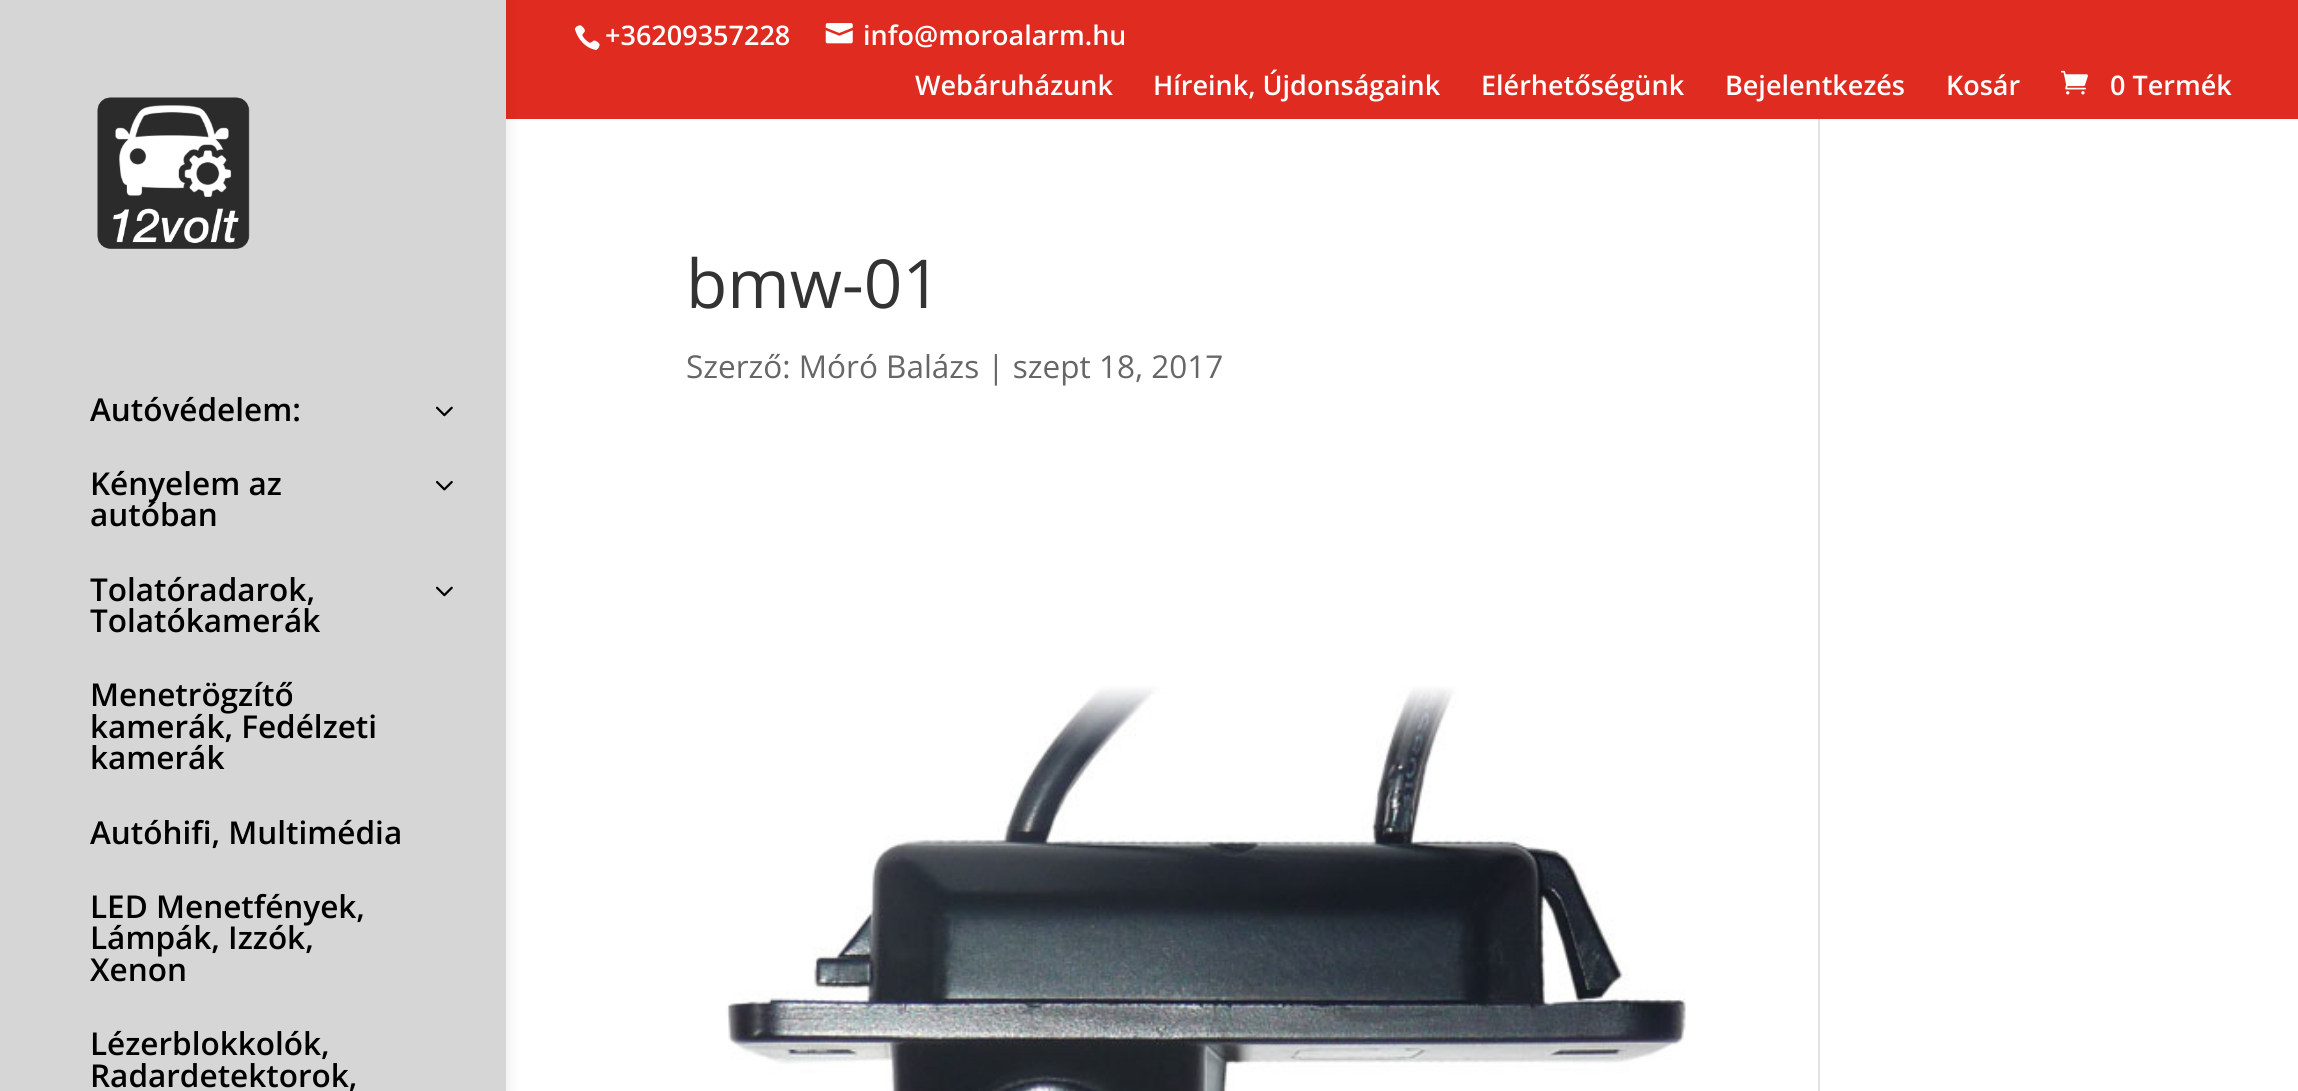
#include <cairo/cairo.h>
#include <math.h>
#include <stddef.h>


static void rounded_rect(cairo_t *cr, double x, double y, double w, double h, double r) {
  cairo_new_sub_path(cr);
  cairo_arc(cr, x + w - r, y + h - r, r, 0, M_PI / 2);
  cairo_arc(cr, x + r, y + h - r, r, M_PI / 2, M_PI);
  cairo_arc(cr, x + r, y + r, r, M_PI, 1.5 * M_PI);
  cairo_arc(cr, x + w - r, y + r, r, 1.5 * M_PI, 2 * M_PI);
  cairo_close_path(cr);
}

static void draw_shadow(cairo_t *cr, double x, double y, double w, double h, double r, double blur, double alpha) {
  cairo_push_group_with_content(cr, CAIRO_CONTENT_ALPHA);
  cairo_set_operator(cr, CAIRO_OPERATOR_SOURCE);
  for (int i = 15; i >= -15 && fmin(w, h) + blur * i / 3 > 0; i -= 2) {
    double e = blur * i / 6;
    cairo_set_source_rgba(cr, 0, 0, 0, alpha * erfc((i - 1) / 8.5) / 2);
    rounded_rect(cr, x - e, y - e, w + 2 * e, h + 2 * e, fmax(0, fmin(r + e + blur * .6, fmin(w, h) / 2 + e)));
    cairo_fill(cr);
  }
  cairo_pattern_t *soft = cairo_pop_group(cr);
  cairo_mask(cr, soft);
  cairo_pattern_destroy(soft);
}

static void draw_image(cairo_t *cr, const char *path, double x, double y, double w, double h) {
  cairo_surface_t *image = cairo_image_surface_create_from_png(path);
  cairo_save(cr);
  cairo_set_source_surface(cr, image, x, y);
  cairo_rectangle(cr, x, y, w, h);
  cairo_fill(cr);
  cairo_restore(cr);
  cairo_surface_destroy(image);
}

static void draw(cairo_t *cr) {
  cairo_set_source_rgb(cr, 1, 1, 1);
  cairo_paint(cr);
  cairo_set_source_rgb(cr, 224 / 255.0, 43 / 255.0, 32 / 255.0);
  cairo_rectangle(cr, 506, 0, 1792, 119);
  cairo_fill(cr);
  draw_image(cr, "images/1.png", 574, 25, 26, 26);
  draw_image(cr, "images/2.png", 825, 23, 28, 21);
  draw_image(cr, "images/3.png", 2061, 70, 27, 25);
  draw_image(cr, "images/4.png", 726, 686, 960, 405);
  cairo_set_source_rgb(cr, 226 / 255.0, 226 / 255.0, 226 / 255.0);
  cairo_rectangle(cr, 1818, 119, 2, 972);
  cairo_fill(cr);
  cairo_set_source_rgb(cr, 0, 0, 0);
  draw_shadow(cr, 0, 0, 506, 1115, 0, 8, 0.1);
  cairo_set_source_rgb(cr, 214 / 255.0, 214 / 255.0, 214 / 255.0);
  cairo_rectangle(cr, 0, 0, 506, 1091);
  cairo_fill(cr);
  draw_image(cr, "images/5.png", 97, 97, 153, 152);
  draw_image(cr, "images/6.png", 436, 406, 17, 11);
  draw_image(cr, "images/7.png", 436, 481, 17, 10);
  draw_image(cr, "images/6.png", 436, 586, 17, 11);
  cairo_select_font_face(cr, "Open Sans SemiBold", CAIRO_FONT_SLANT_NORMAL, CAIRO_FONT_WEIGHT_NORMAL);
  cairo_set_font_size(cr, 27);
  cairo_set_source_rgb(cr, 1, 1, 1);
  cairo_move_to(cr, 605, 45);
  cairo_show_text(cr, "+36209357228");
  cairo_move_to(cr, 863, 45);
  cairo_show_text(cr, "info@moroalarm.hu");
  cairo_move_to(cr, 915, 95);
  cairo_show_text(cr, "Webáruházunk");
  cairo_move_to(cr, 1153, 95);
  cairo_show_text(cr, "Híreink, Újdonságaink");
  cairo_move_to(cr, 1481, 95);
  cairo_show_text(cr, "Elérhetőségünk");
  cairo_move_to(cr, 1725, 95);
  cairo_show_text(cr, "Bejelentkezés");
  cairo_move_to(cr, 1946, 95);
  cairo_show_text(cr, "Kosár");
  cairo_move_to(cr, 2110, 95);
  cairo_show_text(cr, "0 Termék");
  cairo_select_font_face(cr, "Open Sans", CAIRO_FONT_SLANT_NORMAL, CAIRO_FONT_WEIGHT_NORMAL);
  cairo_set_font_size(cr, 67.5);
  cairo_set_source_rgb(cr, 51 / 255.0, 51 / 255.0, 51 / 255.0);
  cairo_move_to(cr, 686, 308);
  cairo_show_text(cr, "bmw-01");
  cairo_set_font_size(cr, 31.5);
  cairo_set_source_rgb(cr, 102 / 255.0, 102 / 255.0, 102 / 255.0);
  cairo_move_to(cr, 686, 378);
  cairo_show_text(cr, "Szerző: Móró Balázs | szept 18, 2017");
  cairo_select_font_face(cr, "Open Sans SemiBold", CAIRO_FONT_SLANT_NORMAL, CAIRO_FONT_WEIGHT_NORMAL);
  cairo_set_source_rgb(cr, 0, 0, 0);
  cairo_move_to(cr, 90, 421);
  cairo_show_text(cr, "Autóvédelem:");
  cairo_move_to(cr, 90, 495);
  cairo_show_text(cr, "Kényelem az");
  cairo_move_to(cr, 90, 526);
  cairo_show_text(cr, "autóban");
  cairo_move_to(cr, 90, 601);
  cairo_show_text(cr, "Tolatóradarok,");
  cairo_move_to(cr, 90, 632);
  cairo_show_text(cr, "Tolatókamerák");
  cairo_move_to(cr, 90, 706);
  cairo_show_text(cr, "Menetrögzítő");
  cairo_move_to(cr, 90, 738);
  cairo_show_text(cr, "kamerák, Fedélzeti");
  cairo_move_to(cr, 90, 769);
  cairo_show_text(cr, "kamerák");
  cairo_move_to(cr, 90, 844);
  cairo_show_text(cr, "Autóhifi, Multimédia");
  cairo_move_to(cr, 90, 918);
  cairo_show_text(cr, "LED Menetfények,");
  cairo_move_to(cr, 90, 949);
  cairo_show_text(cr, "Lámpák, Izzók,");
  cairo_move_to(cr, 90, 981);
  cairo_show_text(cr, "Xenon");
  cairo_move_to(cr, 90, 1055);
  cairo_show_text(cr, "Lézerblokkolók,");
  cairo_move_to(cr, 90, 1087);
  cairo_show_text(cr, "Radardetektorok,");
}

int main(void) {
  cairo_surface_t *surface = cairo_image_surface_create(CAIRO_FORMAT_RGB24, 2298, 1091);
  cairo_t *cr = cairo_create(surface);
  cairo_font_options_t *options = cairo_font_options_create();
  cairo_font_options_set_hint_metrics(options, CAIRO_HINT_METRICS_OFF);
  cairo_font_options_set_hint_style(options, CAIRO_HINT_STYLE_NONE);
  cairo_set_font_options(cr, options);
  cairo_set_miter_limit(cr, 4);
  draw(cr);
  cairo_surface_write_to_png(surface, "out.png");
  cairo_font_options_destroy(options);
  cairo_destroy(cr);
  cairo_surface_destroy(surface);
  return 0;
}
